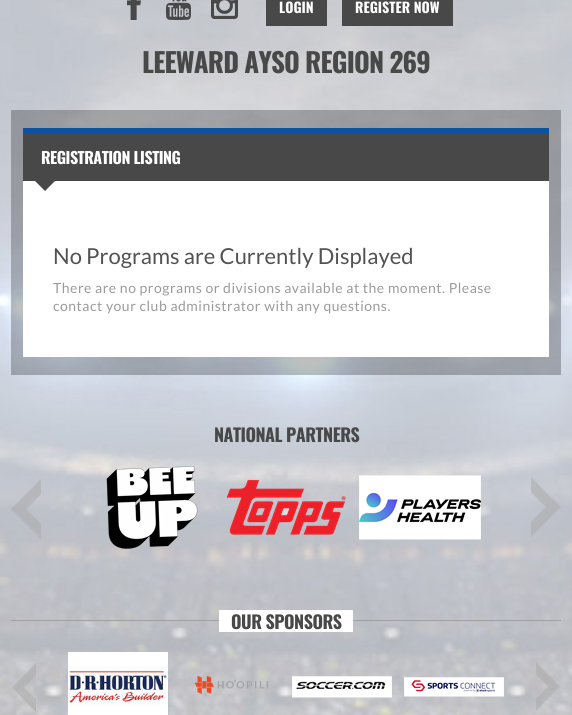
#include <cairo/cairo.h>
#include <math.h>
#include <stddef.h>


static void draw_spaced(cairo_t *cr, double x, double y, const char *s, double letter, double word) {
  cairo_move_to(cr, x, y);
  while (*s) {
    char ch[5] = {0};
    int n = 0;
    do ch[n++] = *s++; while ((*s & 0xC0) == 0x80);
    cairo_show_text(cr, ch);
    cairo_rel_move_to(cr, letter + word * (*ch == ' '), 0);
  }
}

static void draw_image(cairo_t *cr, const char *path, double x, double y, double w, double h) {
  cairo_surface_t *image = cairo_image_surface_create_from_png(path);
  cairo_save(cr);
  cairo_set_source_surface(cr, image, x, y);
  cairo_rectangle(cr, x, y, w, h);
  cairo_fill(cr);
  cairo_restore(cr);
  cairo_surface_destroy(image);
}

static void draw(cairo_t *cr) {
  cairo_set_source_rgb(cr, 1, 1, 1);
  cairo_paint(cr);
  draw_image(cr, "images/1.png", 0, 0, 572, 715);
  draw_image(cr, "images/2.png", 127, 0, 14, 20);
  draw_image(cr, "images/3.png", 166, 0, 25, 20);
  draw_image(cr, "images/4.png", 211, 0, 27, 19);
  cairo_set_source_rgb(cr, 72 / 255.0, 72 / 255.0, 72 / 255.0);
  cairo_rectangle(cr, 266, 0, 61, 26);
  cairo_fill(cr);
  cairo_rectangle(cr, 342, 0, 111, 26);
  cairo_fill(cr);
  cairo_set_source_rgba(cr, 0, 0, 0, 0.25);
  cairo_rectangle(cr, 11, 110, 550, 265);
  cairo_fill(cr);
  cairo_set_source_rgb(cr, 72 / 255.0, 72 / 255.0, 72 / 255.0);
  cairo_rectangle(cr, 23, 133, 526, 48);
  cairo_fill(cr);
  cairo_set_source_rgb(cr, 11 / 255.0, 82 / 255.0, 160 / 255.0);
  cairo_rectangle(cr, 23, 128, 526, 5);
  cairo_fill(cr);
  cairo_set_source_rgb(cr, 1, 1, 1);
  cairo_rectangle(cr, 23, 181, 526, 176);
  cairo_fill(cr);
  cairo_set_source_rgb(cr, 72 / 255.0, 72 / 255.0, 72 / 255.0);
  cairo_new_path(cr);
  cairo_move_to(cr, 35, 181);
  cairo_line_to(cr, 55, 181);
  cairo_line_to(cr, 45, 191);
  cairo_close_path(cr);
  cairo_fill(cr);
  draw_image(cr, "images/5.png", 11, 479, 30, 60);
  draw_image(cr, "images/6.png", 106, 466, 92, 83);
  draw_image(cr, "images/7.png", 226, 479, 120, 56);
  draw_image(cr, "images/8.png", 359, 475, 122, 65);
  draw_image(cr, "images/9.png", 531, 477, 30, 60);
  cairo_set_source_rgb(cr, 160 / 255.0, 160 / 255.0, 160 / 255.0);
  cairo_rectangle(cr, 11, 620, 550, 1);
  cairo_fill(cr);
  cairo_set_source_rgb(cr, 1, 1, 1);
  cairo_rectangle(cr, 219, 610, 134, 22);
  cairo_fill(cr);
  draw_image(cr, "images/10.png", 12, 663, 24, 49);
  draw_image(cr, "images/11.png", 68, 652, 100, 63);
  draw_image(cr, "images/12.png", 194, 675, 76, 19);
  draw_image(cr, "images/13.png", 292, 676, 100, 22);
  draw_image(cr, "images/14.png", 404, 677, 100, 20);
  draw_image(cr, "images/15.png", 536, 662, 24, 49);
  cairo_select_font_face(cr, "Oswald", CAIRO_FONT_SLANT_NORMAL, CAIRO_FONT_WEIGHT_BOLD);
  cairo_set_font_size(cr, 14);
  cairo_move_to(cr, 279, 13);
  cairo_show_text(cr, "LOGIN");
  cairo_move_to(cr, 355, 13);
  cairo_show_text(cr, "REGISTER NOW");
  cairo_set_font_size(cr, 27);
  cairo_set_source_rgb(cr, 72 / 255.0, 72 / 255.0, 72 / 255.0);
  draw_spaced(cr, 142, 73, "LEEWARD AYSO REGION 269", -0.8, 0);
  cairo_set_font_size(cr, 16);
  cairo_set_source_rgb(cr, 1, 1, 1);
  draw_spaced(cr, 41, 164, "REGISTRATION LISTING", -0.5, 0);
  cairo_select_font_face(cr, "Lato", CAIRO_FONT_SLANT_NORMAL, CAIRO_FONT_WEIGHT_NORMAL);
  cairo_set_font_size(cr, 22);
  cairo_set_source_rgb(cr, 82 / 255.0, 82 / 255.0, 82 / 255.0);
  cairo_move_to(cr, 53, 264);
  cairo_show_text(cr, "No Programs are Currently Displayed");
  cairo_set_font_size(cr, 14);
  cairo_set_source_rgb(cr, 155 / 255.0, 155 / 255.0, 155 / 255.0);
  draw_spaced(cr, 53, 293, "There are no programs or divisions available at the moment. Please", 0.5, 0);
  draw_spaced(cr, 53, 311, "contact your club administrator with any questions.", 0.5, 0);
  cairo_select_font_face(cr, "Oswald", CAIRO_FONT_SLANT_NORMAL, CAIRO_FONT_WEIGHT_BOLD);
  cairo_set_font_size(cr, 18);
  cairo_set_source_rgb(cr, 72 / 255.0, 72 / 255.0, 72 / 255.0);
  draw_spaced(cr, 214, 442, "NATIONAL PARTNERS", -0.5, 0);
  draw_spaced(cr, 231, 629, "OUR SPONSORS", -0.5, 0);
}

int main(void) {
  cairo_surface_t *surface = cairo_image_surface_create(CAIRO_FORMAT_RGB24, 572, 715);
  cairo_t *cr = cairo_create(surface);
  cairo_font_options_t *options = cairo_font_options_create();
  cairo_font_options_set_hint_metrics(options, CAIRO_HINT_METRICS_OFF);
  cairo_font_options_set_hint_style(options, CAIRO_HINT_STYLE_NONE);
  cairo_set_font_options(cr, options);
  cairo_set_miter_limit(cr, 4);
  draw(cr);
  cairo_surface_write_to_png(surface, "out.png");
  cairo_font_options_destroy(options);
  cairo_destroy(cr);
  cairo_surface_destroy(surface);
  return 0;
}
